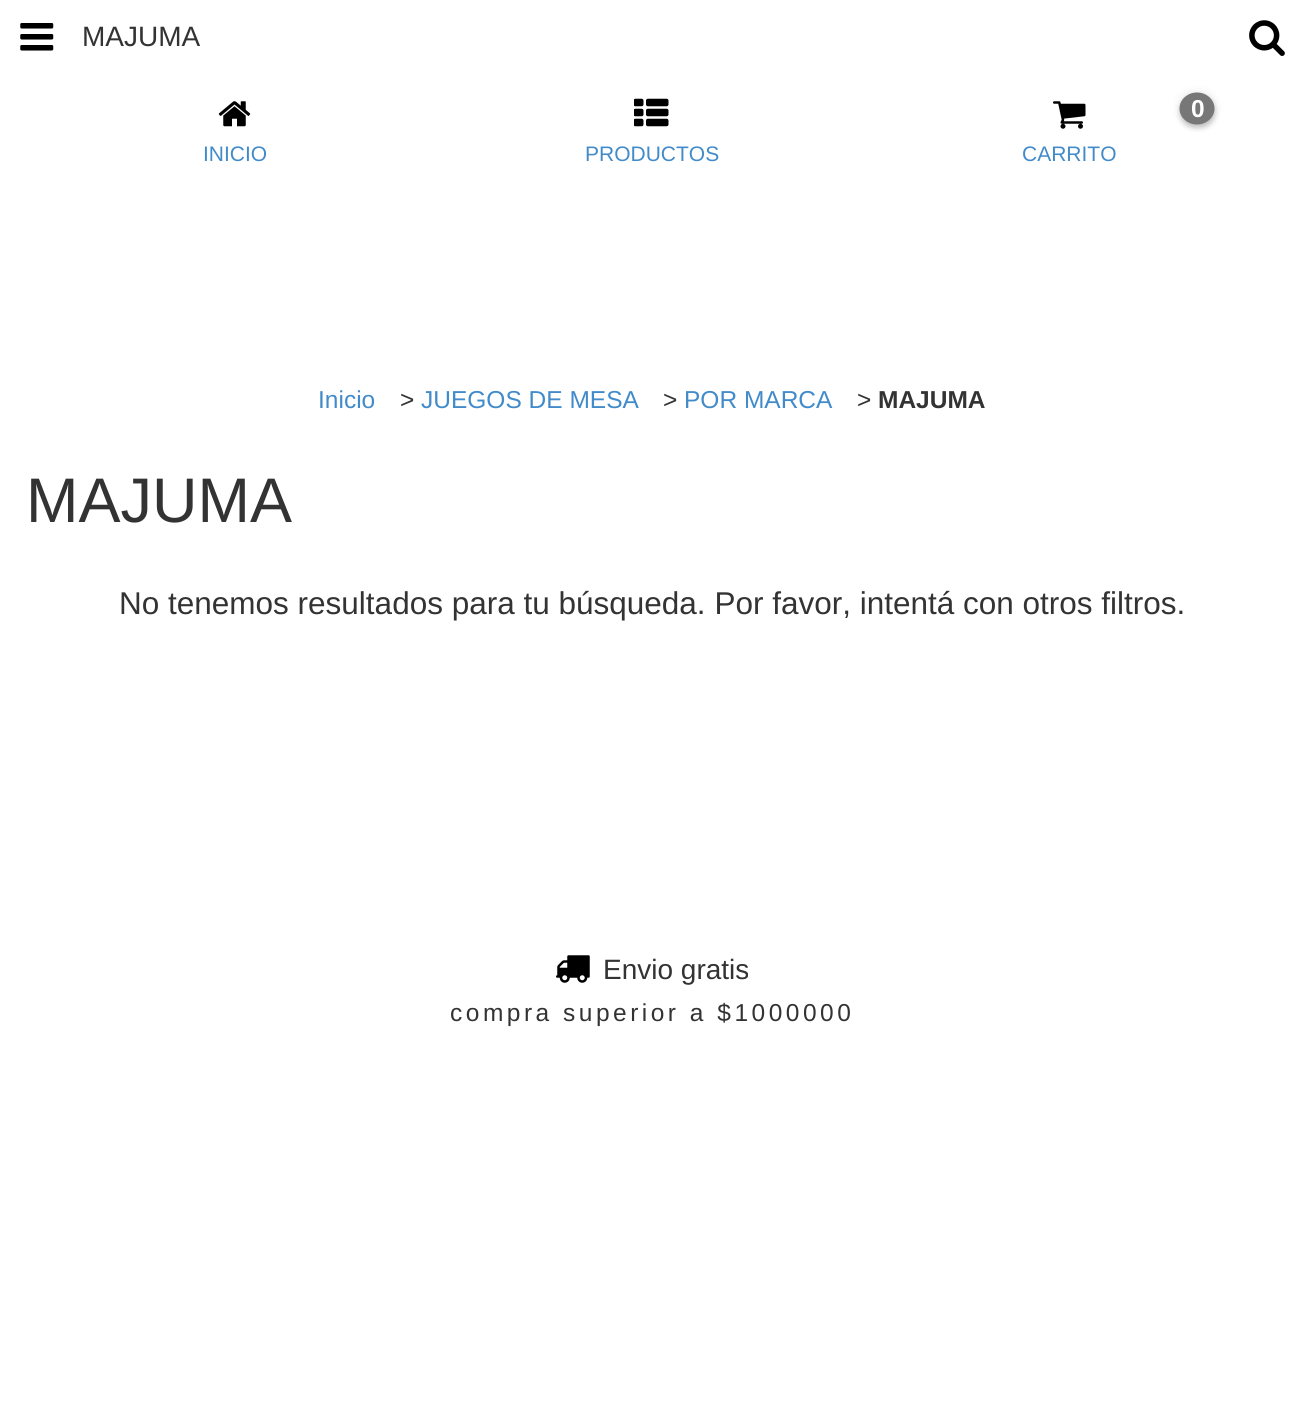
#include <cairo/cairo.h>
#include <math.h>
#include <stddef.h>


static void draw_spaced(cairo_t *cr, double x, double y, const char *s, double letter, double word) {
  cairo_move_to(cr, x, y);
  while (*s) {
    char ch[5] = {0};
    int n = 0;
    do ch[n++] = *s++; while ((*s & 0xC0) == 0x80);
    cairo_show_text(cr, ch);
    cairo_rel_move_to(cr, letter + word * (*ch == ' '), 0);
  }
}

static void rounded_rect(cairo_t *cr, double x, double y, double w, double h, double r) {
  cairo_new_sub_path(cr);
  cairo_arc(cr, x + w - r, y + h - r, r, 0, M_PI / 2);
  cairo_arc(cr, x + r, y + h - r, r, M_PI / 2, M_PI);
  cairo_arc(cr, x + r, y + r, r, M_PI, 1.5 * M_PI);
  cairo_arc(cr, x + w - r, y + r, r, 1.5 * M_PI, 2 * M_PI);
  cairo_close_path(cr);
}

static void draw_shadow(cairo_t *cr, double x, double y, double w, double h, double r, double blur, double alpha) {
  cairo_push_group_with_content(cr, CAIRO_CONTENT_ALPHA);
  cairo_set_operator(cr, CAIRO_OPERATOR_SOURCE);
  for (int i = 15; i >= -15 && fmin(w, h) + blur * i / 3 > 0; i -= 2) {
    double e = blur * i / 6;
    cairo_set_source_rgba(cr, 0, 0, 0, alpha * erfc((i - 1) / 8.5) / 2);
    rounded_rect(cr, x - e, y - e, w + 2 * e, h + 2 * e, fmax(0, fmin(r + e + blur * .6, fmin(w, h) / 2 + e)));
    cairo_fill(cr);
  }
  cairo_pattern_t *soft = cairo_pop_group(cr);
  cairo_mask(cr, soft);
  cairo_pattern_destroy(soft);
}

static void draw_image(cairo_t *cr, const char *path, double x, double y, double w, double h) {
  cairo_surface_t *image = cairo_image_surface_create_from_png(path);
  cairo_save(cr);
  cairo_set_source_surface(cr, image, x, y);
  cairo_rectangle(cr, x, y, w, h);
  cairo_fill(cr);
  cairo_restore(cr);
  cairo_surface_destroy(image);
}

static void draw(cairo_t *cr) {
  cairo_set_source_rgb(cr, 1, 1, 1);
  cairo_paint(cr);
  draw_image(cr, "images/1.png", 20, 23, 34, 28);
  draw_image(cr, "images/2.png", 1249, 20, 36, 36);
  draw_image(cr, "images/3.png", 218, 101, 33, 26);
  draw_image(cr, "images/4.png", 634, 98, 35, 29);
  draw_image(cr, "images/5.png", 1053, 101, 33, 28);
  cairo_set_source_rgb(cr, 0, 0, 0);
  draw_shadow(cr, 1180, 96, 35, 32, 16, 2.5, 0.2);
  draw_shadow(cr, 1180, 93, 35, 31, 15.5, 4.5, 0.1);
  cairo_set_source_rgb(cr, 119 / 255.0, 119 / 255.0, 119 / 255.0);
  cairo_new_path(cr);
  cairo_move_to(cr, 1197, 92.5);
  cairo_curve_to(cr, 1206.5, 92.5, 1214.5, 99.5, 1214.5, 108.5);
  cairo_curve_to(cr, 1214.5, 117.5, 1206.5, 124.5, 1197, 124.5);
  cairo_curve_to(cr, 1187.5, 124.5, 1179.5, 117.5, 1179.5, 108.5);
  cairo_curve_to(cr, 1179.5, 99.5, 1187.5, 92.5, 1197, 92.5);
  cairo_close_path(cr);
  cairo_fill(cr);
  draw_image(cr, "images/6.png", 556, 955, 34, 28);
  cairo_select_font_face(cr, "Liberation Sans", CAIRO_FONT_SLANT_NORMAL, CAIRO_FONT_WEIGHT_NORMAL);
  cairo_set_font_size(cr, 28);
  cairo_set_source_rgb(cr, 51 / 255.0, 51 / 255.0, 51 / 255.0);
  cairo_move_to(cr, 82, 46);
  cairo_show_text(cr, "MAJUMA");
  cairo_set_font_size(cr, 21);
  cairo_set_source_rgb(cr, 66 / 255.0, 139 / 255.0, 202 / 255.0);
  cairo_move_to(cr, 203, 161);
  cairo_show_text(cr, "INICIO");
  cairo_move_to(cr, 585, 161);
  cairo_show_text(cr, "PRODUCTOS");
  cairo_select_font_face(cr, "Liberation Sans", CAIRO_FONT_SLANT_NORMAL, CAIRO_FONT_WEIGHT_BOLD);
  cairo_set_font_size(cr, 24.5);
  cairo_set_source_rgb(cr, 1, 1, 1);
  cairo_move_to(cr, 1191, 117);
  cairo_show_text(cr, "0");
  cairo_select_font_face(cr, "Liberation Sans", CAIRO_FONT_SLANT_NORMAL, CAIRO_FONT_WEIGHT_NORMAL);
  cairo_set_font_size(cr, 21);
  cairo_set_source_rgb(cr, 66 / 255.0, 139 / 255.0, 202 / 255.0);
  cairo_move_to(cr, 1022, 161);
  cairo_show_text(cr, "CARRITO");
  cairo_set_font_size(cr, 24.5);
  cairo_move_to(cr, 318, 408);
  cairo_show_text(cr, "Inicio");
  cairo_set_source_rgb(cr, 51 / 255.0, 51 / 255.0, 51 / 255.0);
  cairo_move_to(cr, 400, 408);
  cairo_show_text(cr, ">");
  cairo_set_source_rgb(cr, 66 / 255.0, 139 / 255.0, 202 / 255.0);
  cairo_move_to(cr, 421, 408);
  cairo_show_text(cr, "JUEGOS DE MESA");
  cairo_set_source_rgb(cr, 51 / 255.0, 51 / 255.0, 51 / 255.0);
  cairo_move_to(cr, 663, 408);
  cairo_show_text(cr, ">");
  cairo_set_source_rgb(cr, 66 / 255.0, 139 / 255.0, 202 / 255.0);
  cairo_move_to(cr, 684, 408);
  cairo_show_text(cr, "POR MARCA");
  cairo_set_source_rgb(cr, 51 / 255.0, 51 / 255.0, 51 / 255.0);
  cairo_move_to(cr, 857, 408);
  cairo_show_text(cr, ">");
  cairo_select_font_face(cr, "Liberation Sans", CAIRO_FONT_SLANT_NORMAL, CAIRO_FONT_WEIGHT_BOLD);
  cairo_move_to(cr, 878, 408);
  cairo_show_text(cr, "MAJUMA");
  cairo_select_font_face(cr, "Liberation Sans", CAIRO_FONT_SLANT_NORMAL, CAIRO_FONT_WEIGHT_NORMAL);
  cairo_set_font_size(cr, 63);
  cairo_move_to(cr, 26, 522);
  cairo_show_text(cr, "MAJUMA");
  cairo_set_font_size(cr, 31.5);
  cairo_move_to(cr, 119, 614);
  cairo_show_text(cr, "No tenemos resultados para tu búsqueda. Por favor, intentá con otros filtros.");
  cairo_set_font_size(cr, 28);
  cairo_move_to(cr, 603, 979);
  cairo_show_text(cr, "Envio gratis");
  cairo_set_font_size(cr, 24.5);
  draw_spaced(cr, 450, 1021, "compra superior a $1000000", 3.5, 0);
}

int main(void) {
  cairo_surface_t *surface = cairo_image_surface_create(CAIRO_FORMAT_RGB24, 1303, 1411);
  cairo_t *cr = cairo_create(surface);
  cairo_font_options_t *options = cairo_font_options_create();
  cairo_font_options_set_hint_metrics(options, CAIRO_HINT_METRICS_OFF);
  cairo_font_options_set_hint_style(options, CAIRO_HINT_STYLE_NONE);
  cairo_set_font_options(cr, options);
  cairo_set_miter_limit(cr, 4);
  draw(cr);
  cairo_surface_write_to_png(surface, "out.png");
  cairo_font_options_destroy(options);
  cairo_destroy(cr);
  cairo_surface_destroy(surface);
  return 0;
}
